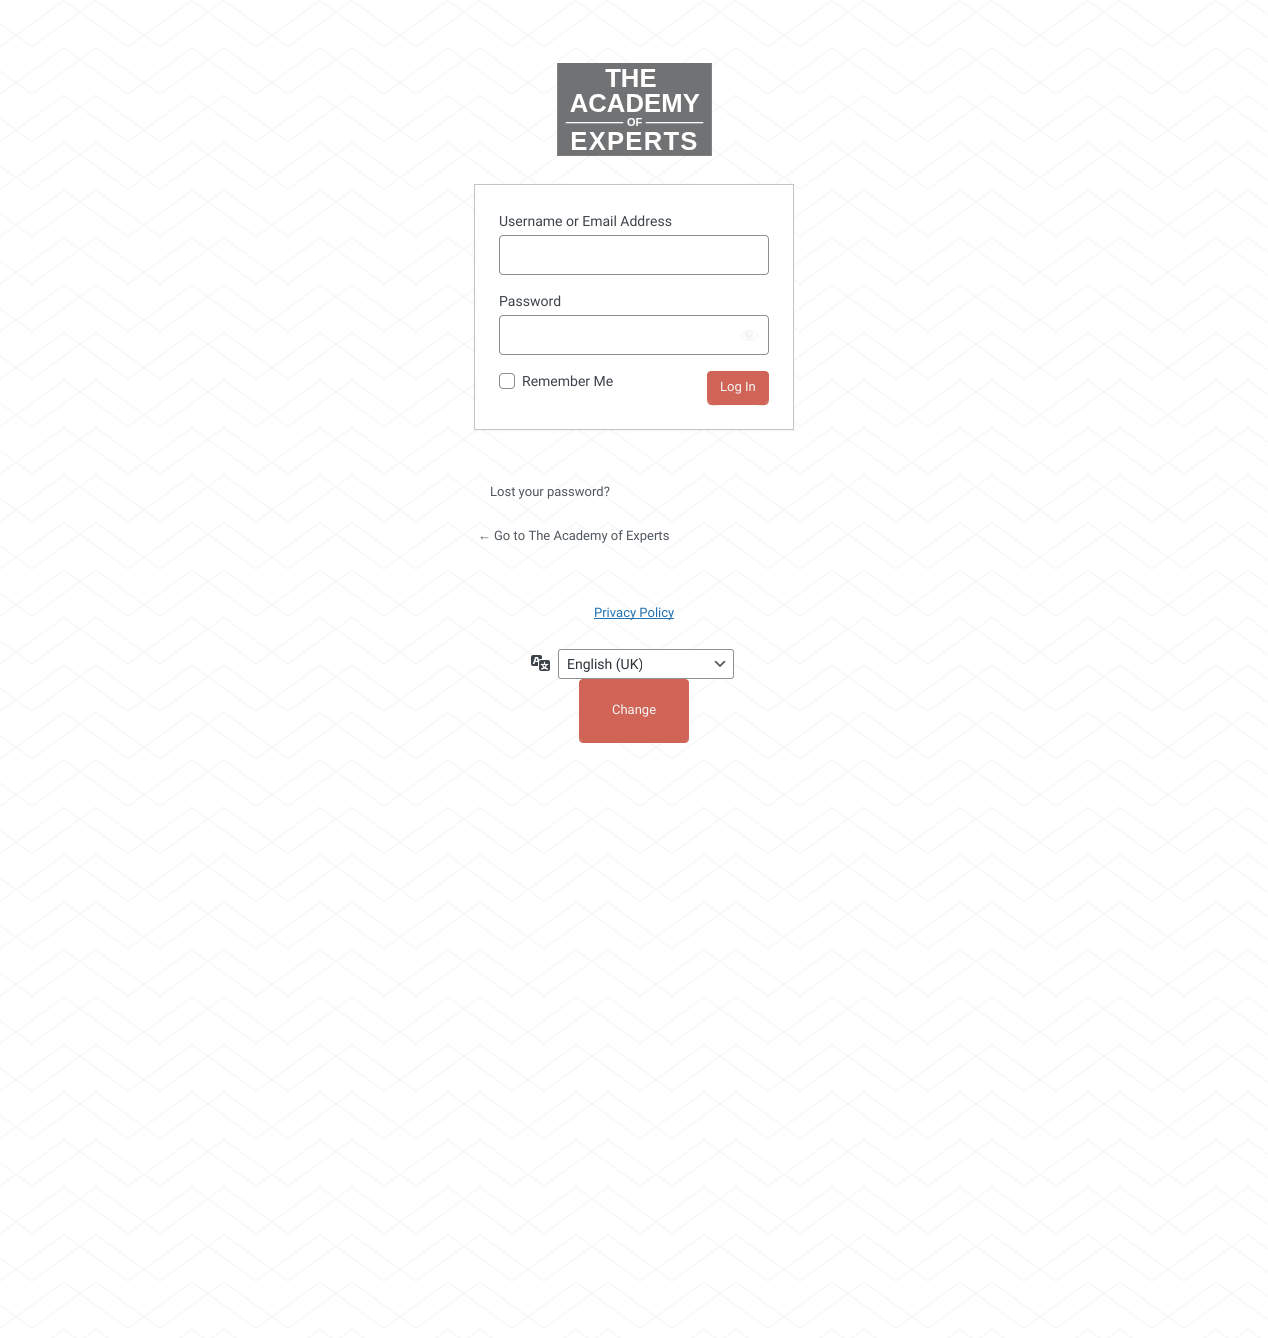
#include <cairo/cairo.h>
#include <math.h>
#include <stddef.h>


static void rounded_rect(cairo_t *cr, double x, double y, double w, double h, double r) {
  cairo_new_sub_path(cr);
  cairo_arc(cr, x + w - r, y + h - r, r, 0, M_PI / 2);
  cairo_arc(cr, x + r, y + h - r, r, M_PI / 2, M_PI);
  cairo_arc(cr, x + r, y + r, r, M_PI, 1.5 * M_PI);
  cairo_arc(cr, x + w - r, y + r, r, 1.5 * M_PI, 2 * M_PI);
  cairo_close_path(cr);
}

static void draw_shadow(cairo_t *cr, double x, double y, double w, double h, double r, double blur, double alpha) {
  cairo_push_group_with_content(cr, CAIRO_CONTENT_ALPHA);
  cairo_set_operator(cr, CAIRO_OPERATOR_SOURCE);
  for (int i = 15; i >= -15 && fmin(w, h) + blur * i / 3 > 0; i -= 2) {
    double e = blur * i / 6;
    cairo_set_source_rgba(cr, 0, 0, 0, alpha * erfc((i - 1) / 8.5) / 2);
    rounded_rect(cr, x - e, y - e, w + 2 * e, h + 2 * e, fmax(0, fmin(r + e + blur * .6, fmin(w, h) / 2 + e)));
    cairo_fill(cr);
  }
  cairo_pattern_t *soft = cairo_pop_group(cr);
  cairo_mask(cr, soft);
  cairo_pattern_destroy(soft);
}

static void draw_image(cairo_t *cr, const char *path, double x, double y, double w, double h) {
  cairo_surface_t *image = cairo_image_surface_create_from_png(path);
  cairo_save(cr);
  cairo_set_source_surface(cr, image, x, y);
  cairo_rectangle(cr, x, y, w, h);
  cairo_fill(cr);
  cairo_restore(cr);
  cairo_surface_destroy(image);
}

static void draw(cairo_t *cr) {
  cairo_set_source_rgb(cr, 1, 1, 1);
  cairo_paint(cr);
  draw_image(cr, "images/1.png", 0, 0, 1268, 1338);
  draw_image(cr, "images/2.png", 557, 63, 155, 93);
  cairo_set_source_rgb(cr, 0, 0, 0);
  draw_shadow(cr, 474, 185, 320, 246, 0, 1.5, 0.04);
  cairo_set_source_rgb(cr, 1, 1, 1);
  cairo_rectangle(cr, 474.5, 184.5, 319, 245);
  cairo_fill_preserve(cr);
  cairo_set_source_rgb(cr, 195 / 255.0, 196 / 255.0, 199 / 255.0);
  cairo_set_line_width(cr, 1);
  cairo_stroke(cr);
  rounded_rect(cr, 499.5, 235.5, 269, 39, 3.5);
  cairo_set_source_rgb(cr, 140 / 255.0, 143 / 255.0, 148 / 255.0);
  cairo_stroke(cr);
  rounded_rect(cr, 499.5, 315.5, 269, 39, 3.5);
  cairo_stroke(cr);
  draw_image(cr, "images/3.png", 740, 330, 18, 11);
  rounded_rect(cr, 499.5, 373.5, 15, 15, 3.5);
  cairo_stroke(cr);
  cairo_set_source_rgb(cr, 207 / 255.0, 100 / 255.0, 87 / 255.0);
  cairo_new_path(cr);
  cairo_move_to(cr, 707, 399);
  cairo_curve_to(cr, 707, 407, 713, 405, 720, 405);
  cairo_line_to(cr, 756, 405);
  cairo_curve_to(cr, 763, 405, 769, 407, 769, 399);
  cairo_curve_to(cr, 769, 401, 767, 403, 765, 403);
  cairo_line_to(cr, 711, 403);
  cairo_curve_to(cr, 709, 403, 707, 401, 707, 399);
  cairo_close_path(cr);
  cairo_fill(cr);
  rounded_rect(cr, 707.5, 371.5, 61, 31, 3.5);
  cairo_fill_preserve(cr);
  cairo_stroke(cr);
  cairo_set_source_rgb(cr, 34 / 255.0, 113 / 255.0, 177 / 255.0);
  cairo_rectangle(cr, 594, 618, 80, 1);
  cairo_fill(cr);
  draw_image(cr, "images/4.png", 531, 655, 19, 16);
  cairo_set_source_rgb(cr, 1, 1, 1);
  rounded_rect(cr, 558, 649, 176, 30, 3);
  cairo_fill(cr);
  draw_image(cr, "images/5.png", 714, 660, 12, 7);
  rounded_rect(cr, 558.5, 649.5, 175, 29, 2.5);
  cairo_set_source_rgb(cr, 140 / 255.0, 143 / 255.0, 148 / 255.0);
  cairo_stroke(cr);
  cairo_set_source_rgb(cr, 207 / 255.0, 100 / 255.0, 87 / 255.0);
  cairo_new_path(cr);
  cairo_move_to(cr, 579, 737);
  cairo_line_to(cr, 579, 739);
  cairo_curve_to(cr, 579, 741, 581, 743, 583, 743);
  cairo_line_to(cr, 685, 743);
  cairo_curve_to(cr, 687, 743, 689, 741, 689, 739);
  cairo_line_to(cr, 689, 737);
  cairo_curve_to(cr, 689, 739, 687, 741, 685, 741);
  cairo_line_to(cr, 583, 741);
  cairo_curve_to(cr, 581, 741, 579, 739, 579, 737);
  cairo_close_path(cr);
  cairo_fill(cr);
  rounded_rect(cr, 579.5, 679.5, 109, 61, 3.5);
  cairo_fill_preserve(cr);
  cairo_stroke(cr);
  cairo_select_font_face(cr, "Roboto", CAIRO_FONT_SLANT_NORMAL, CAIRO_FONT_WEIGHT_NORMAL);
  cairo_set_font_size(cr, 14);
  cairo_set_source_rgb(cr, 60 / 255.0, 67 / 255.0, 74 / 255.0);
  cairo_move_to(cr, 499, 226);
  cairo_show_text(cr, "Username or Email Address");
  cairo_move_to(cr, 499, 306);
  cairo_show_text(cr, "Password");
  cairo_move_to(cr, 522, 386);
  cairo_show_text(cr, "Remember Me");
  cairo_set_font_size(cr, 13);
  cairo_set_source_rgb(cr, 245 / 255.0, 245 / 255.0, 245 / 255.0);
  cairo_move_to(cr, 720, 391);
  cairo_show_text(cr, "Log In");
  cairo_set_source_rgb(cr, 80 / 255.0, 87 / 255.0, 94 / 255.0);
  cairo_move_to(cr, 490, 496);
  cairo_show_text(cr, "Lost your password?");
  cairo_select_font_face(cr, "Liberation Sans", CAIRO_FONT_SLANT_NORMAL, CAIRO_FONT_WEIGHT_NORMAL);
  cairo_move_to(cr, 478, 540);
  cairo_show_text(cr, "←");
  cairo_select_font_face(cr, "Roboto", CAIRO_FONT_SLANT_NORMAL, CAIRO_FONT_WEIGHT_NORMAL);
  cairo_move_to(cr, 494, 540);
  cairo_show_text(cr, "Go to The Academy of Experts");
  cairo_set_source_rgb(cr, 34 / 255.0, 113 / 255.0, 177 / 255.0);
  cairo_move_to(cr, 594, 617);
  cairo_show_text(cr, "Privacy Policy");
  cairo_set_font_size(cr, 14);
  cairo_set_source_rgb(cr, 44 / 255.0, 51 / 255.0, 56 / 255.0);
  cairo_move_to(cr, 567, 669);
  cairo_show_text(cr, "English (UK)");
  cairo_set_font_size(cr, 13);
  cairo_set_source_rgb(cr, 245 / 255.0, 245 / 255.0, 245 / 255.0);
  cairo_move_to(cr, 612, 714);
  cairo_show_text(cr, "Change");
}

int main(void) {
  cairo_surface_t *surface = cairo_image_surface_create(CAIRO_FORMAT_RGB24, 1268, 1338);
  cairo_t *cr = cairo_create(surface);
  cairo_font_options_t *options = cairo_font_options_create();
  cairo_font_options_set_hint_metrics(options, CAIRO_HINT_METRICS_OFF);
  cairo_font_options_set_hint_style(options, CAIRO_HINT_STYLE_NONE);
  cairo_set_font_options(cr, options);
  cairo_set_miter_limit(cr, 4);
  draw(cr);
  cairo_surface_write_to_png(surface, "out.png");
  cairo_font_options_destroy(options);
  cairo_destroy(cr);
  cairo_surface_destroy(surface);
  return 0;
}
